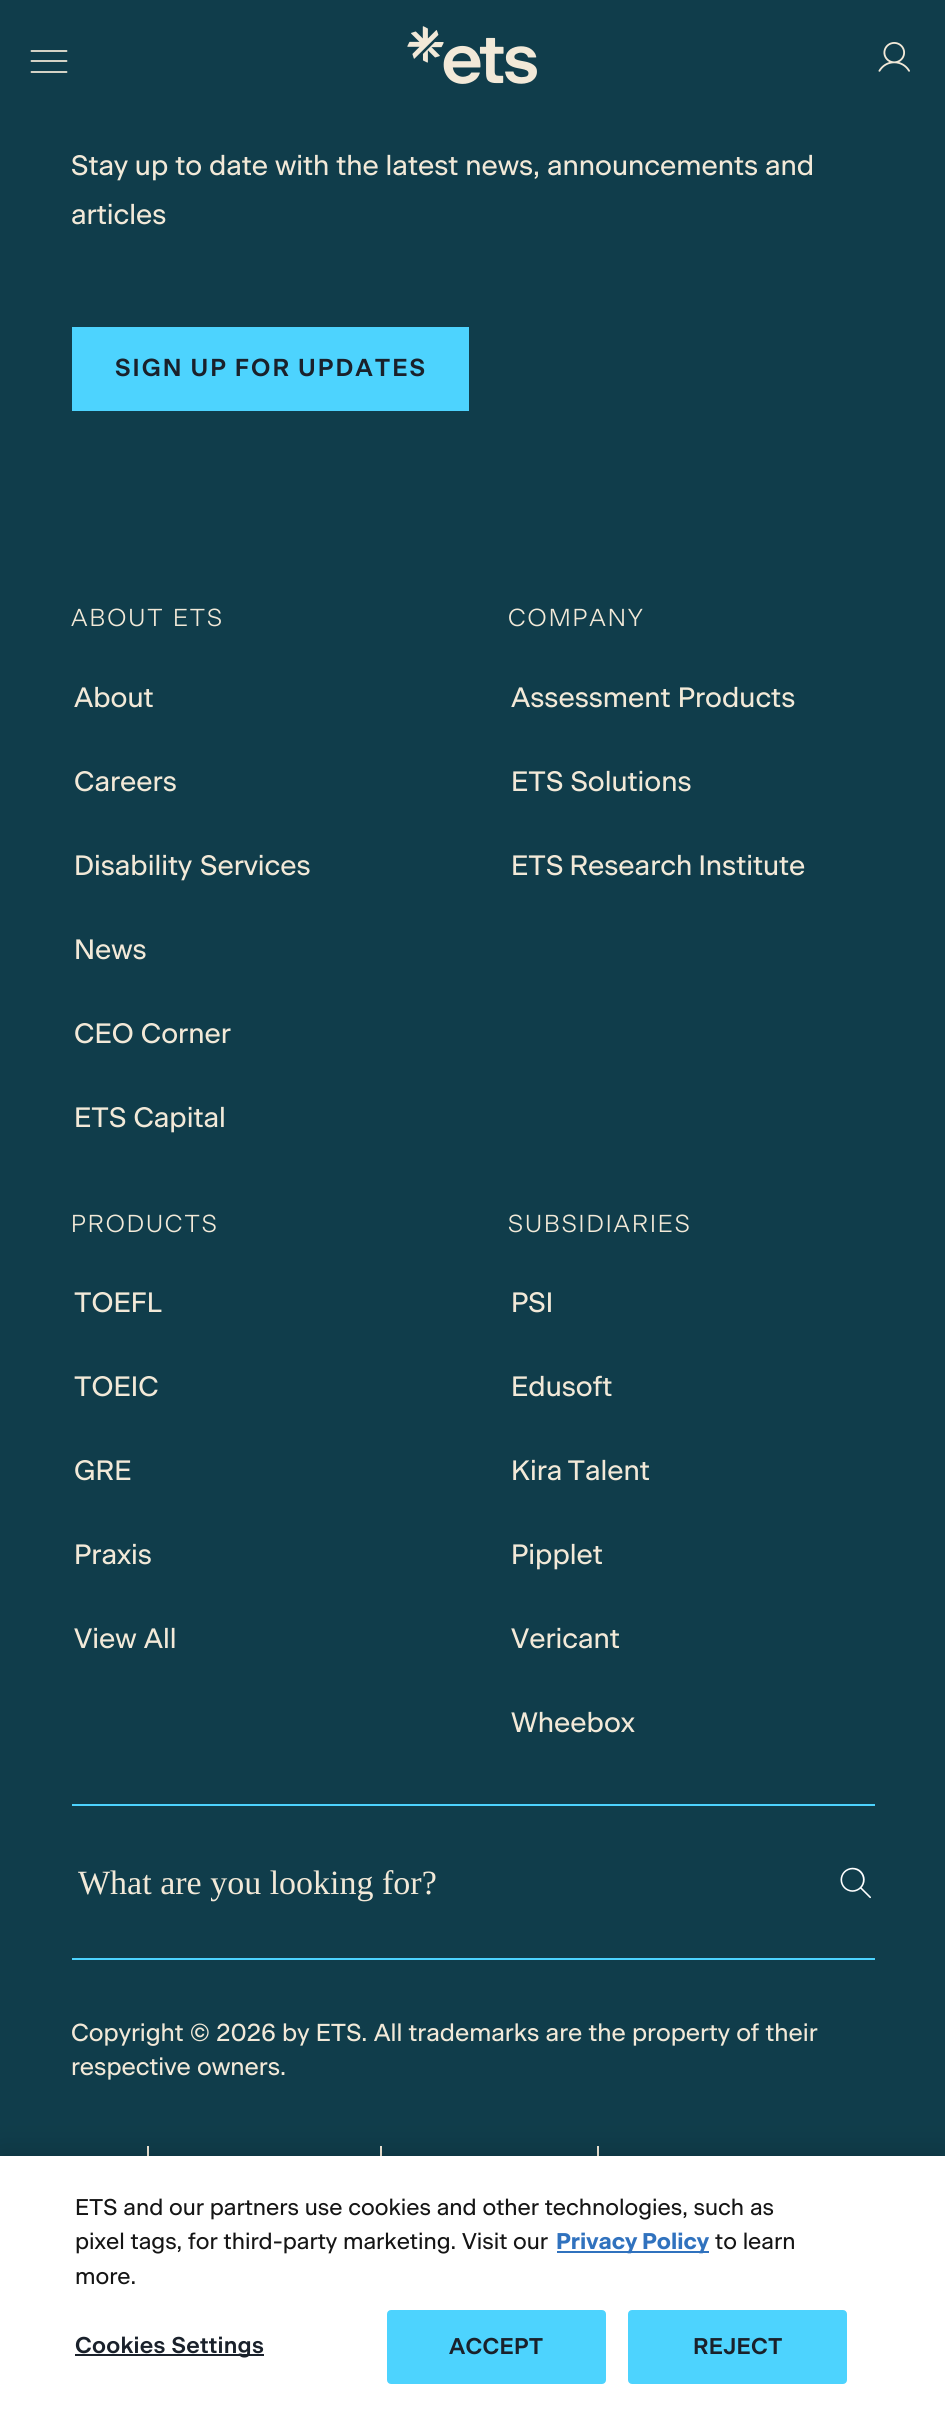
#include <cairo/cairo.h>
#include <math.h>
#include <stddef.h>


static void draw_spaced(cairo_t *cr, double x, double y, const char *s, double letter, double word) {
  cairo_move_to(cr, x, y);
  while (*s) {
    char ch[5] = {0};
    int n = 0;
    do ch[n++] = *s++; while ((*s & 0xC0) == 0x80);
    cairo_show_text(cr, ch);
    cairo_rel_move_to(cr, letter + word * (*ch == ' '), 0);
  }
}

static void rounded_rect(cairo_t *cr, double x, double y, double w, double h, double r) {
  cairo_new_sub_path(cr);
  cairo_arc(cr, x + w - r, y + h - r, r, 0, M_PI / 2);
  cairo_arc(cr, x + r, y + h - r, r, M_PI / 2, M_PI);
  cairo_arc(cr, x + r, y + r, r, M_PI, 1.5 * M_PI);
  cairo_arc(cr, x + w - r, y + r, r, 1.5 * M_PI, 2 * M_PI);
  cairo_close_path(cr);
}

static void draw_shadow(cairo_t *cr, double x, double y, double w, double h, double r, double blur, double alpha) {
  cairo_push_group_with_content(cr, CAIRO_CONTENT_ALPHA);
  cairo_set_operator(cr, CAIRO_OPERATOR_SOURCE);
  for (int i = 15; i >= -15 && fmin(w, h) + blur * i / 3 > 0; i -= 2) {
    double e = blur * i / 6;
    cairo_set_source_rgba(cr, 0, 0, 0, alpha * erfc((i - 1) / 8.5) / 2);
    rounded_rect(cr, x - e, y - e, w + 2 * e, h + 2 * e, fmax(0, fmin(r + e + blur * .6, fmin(w, h) / 2 + e)));
    cairo_fill(cr);
  }
  cairo_pattern_t *soft = cairo_pop_group(cr);
  cairo_mask(cr, soft);
  cairo_pattern_destroy(soft);
}

static void draw_image(cairo_t *cr, const char *path, double x, double y, double w, double h) {
  cairo_surface_t *image = cairo_image_surface_create_from_png(path);
  cairo_save(cr);
  cairo_set_source_surface(cr, image, x, y);
  cairo_rectangle(cr, x, y, w, h);
  cairo_fill(cr);
  cairo_restore(cr);
  cairo_surface_destroy(image);
}

static void draw(cairo_t *cr) {
  cairo_set_source_rgb(cr, 16 / 255.0, 61 / 255.0, 75 / 255.0);
  cairo_paint(cr);
  cairo_new_path(cr);
  cairo_move_to(cr, 31.5, 51);
  cairo_line_to(cr, 66.5, 51);
  cairo_move_to(cr, 31.5, 61);
  cairo_line_to(cr, 66.5, 61);
  cairo_move_to(cr, 31.5, 72);
  cairo_line_to(cr, 66.5, 72);
  cairo_set_source_rgb(cr, 242 / 255.0, 233 / 255.0, 216 / 255.0);
  cairo_set_line_width(cr, 1.8);
  cairo_set_line_cap(cr, CAIRO_LINE_CAP_ROUND);
  cairo_set_line_join(cr, CAIRO_LINE_JOIN_ROUND);
  cairo_stroke(cr);
  draw_image(cr, "images/1.png", 407, 26, 130, 58);
  draw_image(cr, "images/2.png", 878, 42, 32, 30);
  cairo_set_source_rgb(cr, 77 / 255.0, 211 / 255.0, 254 / 255.0);
  cairo_rectangle(cr, 72, 327, 397, 84);
  cairo_fill(cr);
  cairo_rectangle(cr, 72, 1804, 803, 2);
  cairo_fill(cr);
  cairo_rectangle(cr, 72, 1958, 803, 2);
  cairo_fill(cr);
  draw_image(cr, "images/3.png", 840, 1867, 31, 32);
  cairo_set_source_rgb(cr, 242 / 255.0, 233 / 255.0, 216 / 255.0);
  cairo_rectangle(cr, 147, 2146, 2, 10);
  cairo_fill(cr);
  cairo_rectangle(cr, 380, 2146, 2, 10);
  cairo_fill(cr);
  cairo_rectangle(cr, 597, 2146, 2, 10);
  cairo_fill(cr);
  cairo_set_source_rgb(cr, 0, 0, 0);
  draw_shadow(cr, 0, 2156, 945, 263, 0, 16, 0.2);
  cairo_set_source_rgb(cr, 1, 1, 1);
  cairo_rectangle(cr, 0, 2156, 945, 262);
  cairo_fill(cr);
  cairo_set_source_rgb(cr, 48 / 255.0, 114 / 255.0, 190 / 255.0);
  cairo_rectangle(cr, 557, 2251, 152, 2);
  cairo_fill(cr);
  cairo_set_source_rgb(cr, 26 / 255.0, 33 / 255.0, 43 / 255.0);
  cairo_rectangle(cr, 75, 2354, 189, 2);
  cairo_fill(cr);
  cairo_set_source_rgb(cr, 77 / 255.0, 211 / 255.0, 254 / 255.0);
  rounded_rect(cr, 388, 2311, 217, 72, 3);
  cairo_fill_preserve(cr);
  cairo_set_line_width(cr, 2);
  cairo_set_line_cap(cr, CAIRO_LINE_CAP_BUTT);
  cairo_set_line_join(cr, CAIRO_LINE_JOIN_MITER);
  cairo_stroke(cr);
  rounded_rect(cr, 629, 2311, 217, 72, 3);
  cairo_fill_preserve(cr);
  cairo_stroke(cr);
  cairo_select_font_face(cr, "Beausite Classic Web", CAIRO_FONT_SLANT_NORMAL, CAIRO_FONT_WEIGHT_NORMAL);
  cairo_set_font_size(cr, 28);
  cairo_set_source_rgb(cr, 242 / 255.0, 233 / 255.0, 216 / 255.0);
  draw_spaced(cr, 71, 175, "Stay up to date with the latest news, announcements and", 0, -0.25);
  cairo_move_to(cr, 71, 224);
  cairo_show_text(cr, "articles");
  cairo_select_font_face(cr, "Beausite Classic Web SemiBold", CAIRO_FONT_SLANT_NORMAL, CAIRO_FONT_WEIGHT_NORMAL);
  cairo_set_font_size(cr, 24.5);
  cairo_set_source_rgb(cr, 26 / 255.0, 33 / 255.0, 43 / 255.0);
  draw_spaced(cr, 115, 376, "SIGN UP FOR UPDATES", 2, -1);
  cairo_select_font_face(cr, "Beausite Classic Web Light", CAIRO_FONT_SLANT_NORMAL, CAIRO_FONT_WEIGHT_NORMAL);
  cairo_set_source_rgb(cr, 242 / 255.0, 233 / 255.0, 216 / 255.0);
  draw_spaced(cr, 71, 626, "ABOUT ETS", 2, 0);
  cairo_select_font_face(cr, "Beausite Classic Web", CAIRO_FONT_SLANT_NORMAL, CAIRO_FONT_WEIGHT_NORMAL);
  cairo_set_font_size(cr, 28);
  cairo_move_to(cr, 74, 707);
  cairo_show_text(cr, "About");
  cairo_move_to(cr, 74, 791);
  cairo_show_text(cr, "Careers");
  draw_spaced(cr, 74, 875, "Disability Services", 0, 1);
  cairo_move_to(cr, 74, 959);
  cairo_show_text(cr, "News");
  cairo_move_to(cr, 74, 1043);
  cairo_show_text(cr, "CEO Corner");
  cairo_move_to(cr, 74, 1127);
  cairo_show_text(cr, "ETS Capital");
  cairo_select_font_face(cr, "Beausite Classic Web Light", CAIRO_FONT_SLANT_NORMAL, CAIRO_FONT_WEIGHT_NORMAL);
  cairo_set_font_size(cr, 24.5);
  draw_spaced(cr, 508, 626, "COMPANY", 2, 0);
  cairo_select_font_face(cr, "Beausite Classic Web", CAIRO_FONT_SLANT_NORMAL, CAIRO_FONT_WEIGHT_NORMAL);
  cairo_set_font_size(cr, 28);
  cairo_move_to(cr, 511, 707);
  cairo_show_text(cr, "Assessment Products");
  cairo_move_to(cr, 511, 791);
  cairo_show_text(cr, "ETS Solutions");
  draw_spaced(cr, 511, 875, "ETS Research Institute", 0, -1);
  cairo_select_font_face(cr, "Beausite Classic Web Light", CAIRO_FONT_SLANT_NORMAL, CAIRO_FONT_WEIGHT_NORMAL);
  cairo_set_font_size(cr, 24.5);
  draw_spaced(cr, 71, 1232, "PRODUCTS", 2, 0);
  cairo_select_font_face(cr, "Beausite Classic Web", CAIRO_FONT_SLANT_NORMAL, CAIRO_FONT_WEIGHT_NORMAL);
  cairo_set_font_size(cr, 28);
  cairo_move_to(cr, 74, 1312);
  cairo_show_text(cr, "TOEFL");
  cairo_move_to(cr, 74, 1396);
  cairo_show_text(cr, "TOEIC");
  cairo_move_to(cr, 74, 1480);
  cairo_show_text(cr, "GRE");
  cairo_move_to(cr, 74, 1564);
  cairo_show_text(cr, "Praxis");
  cairo_move_to(cr, 74, 1648);
  cairo_show_text(cr, "View All");
  cairo_select_font_face(cr, "Beausite Classic Web Light", CAIRO_FONT_SLANT_NORMAL, CAIRO_FONT_WEIGHT_NORMAL);
  cairo_set_font_size(cr, 24.5);
  draw_spaced(cr, 508, 1232, "SUBSIDIARIES", 2, 0);
  cairo_select_font_face(cr, "Beausite Classic Web", CAIRO_FONT_SLANT_NORMAL, CAIRO_FONT_WEIGHT_NORMAL);
  cairo_set_font_size(cr, 28);
  cairo_move_to(cr, 511, 1312);
  cairo_show_text(cr, "PSI");
  cairo_move_to(cr, 511, 1396);
  cairo_show_text(cr, "Edusoft");
  draw_spaced(cr, 511, 1480, "Kira Talent", 0, -2);
  cairo_move_to(cr, 511, 1564);
  cairo_show_text(cr, "Pipplet");
  cairo_move_to(cr, 511, 1648);
  cairo_show_text(cr, "Vericant");
  cairo_move_to(cr, 511, 1732);
  cairo_show_text(cr, "Wheebox");
  cairo_select_font_face(cr, "Liberation Serif", CAIRO_FONT_SLANT_NORMAL, CAIRO_FONT_WEIGHT_NORMAL);
  cairo_set_font_size(cr, 34);
  cairo_move_to(cr, 78, 1894);
  cairo_show_text(cr, "What are you looking for?");
  cairo_select_font_face(cr, "Beausite Classic Web", CAIRO_FONT_SLANT_NORMAL, CAIRO_FONT_WEIGHT_NORMAL);
  cairo_set_font_size(cr, 24.5);
  cairo_move_to(cr, 71, 2041);
  cairo_show_text(cr, "Copyright © 2026 by ETS. All trademarks are the property of their");
  cairo_move_to(cr, 71, 2075);
  cairo_show_text(cr, "respective owners.");
  cairo_set_font_size(cr, 22.75);
  cairo_set_source_rgb(cr, 21 / 255.0, 21 / 255.0, 21 / 255.0);
  cairo_move_to(cr, 75, 2215);
  cairo_show_text(cr, "ETS and our partners use cookies and other technologies, such as");
  cairo_move_to(cr, 75, 2249);
  cairo_show_text(cr, "pixel tags,");
  cairo_move_to(cr, 188, 2249);
  cairo_show_text(cr, "for third-party marketing. Visit our");
  cairo_select_font_face(cr, "Beausite Classic Web", CAIRO_FONT_SLANT_NORMAL, CAIRO_FONT_WEIGHT_BOLD);
  cairo_set_source_rgb(cr, 48 / 255.0, 114 / 255.0, 190 / 255.0);
  draw_spaced(cr, 556, 2249, "Privacy Policy", 0, -1);
  cairo_select_font_face(cr, "Beausite Classic Web", CAIRO_FONT_SLANT_NORMAL, CAIRO_FONT_WEIGHT_NORMAL);
  cairo_set_source_rgb(cr, 21 / 255.0, 21 / 255.0, 21 / 255.0);
  cairo_move_to(cr, 715, 2249);
  cairo_show_text(cr, "to learn");
  cairo_move_to(cr, 75, 2284);
  cairo_show_text(cr, "more.");
  cairo_select_font_face(cr, "Beausite Classic Web SemiBold", CAIRO_FONT_SLANT_NORMAL, CAIRO_FONT_WEIGHT_NORMAL);
  cairo_set_source_rgb(cr, 26 / 255.0, 33 / 255.0, 43 / 255.0);
  draw_spaced(cr, 75, 2353, "Cookies Settings", 0.25, 0);
  draw_spaced(cr, 449, 2354, "ACCEPT", 0.25, 0);
  draw_spaced(cr, 693, 2354, "REJECT", 0.25, 0);
}

int main(void) {
  cairo_surface_t *surface = cairo_image_surface_create(CAIRO_FORMAT_RGB24, 945, 2418);
  cairo_t *cr = cairo_create(surface);
  cairo_font_options_t *options = cairo_font_options_create();
  cairo_font_options_set_hint_metrics(options, CAIRO_HINT_METRICS_OFF);
  cairo_font_options_set_hint_style(options, CAIRO_HINT_STYLE_NONE);
  cairo_set_font_options(cr, options);
  cairo_set_miter_limit(cr, 4);
  draw(cr);
  cairo_surface_write_to_png(surface, "out.png");
  cairo_font_options_destroy(options);
  cairo_destroy(cr);
  cairo_surface_destroy(surface);
  return 0;
}
